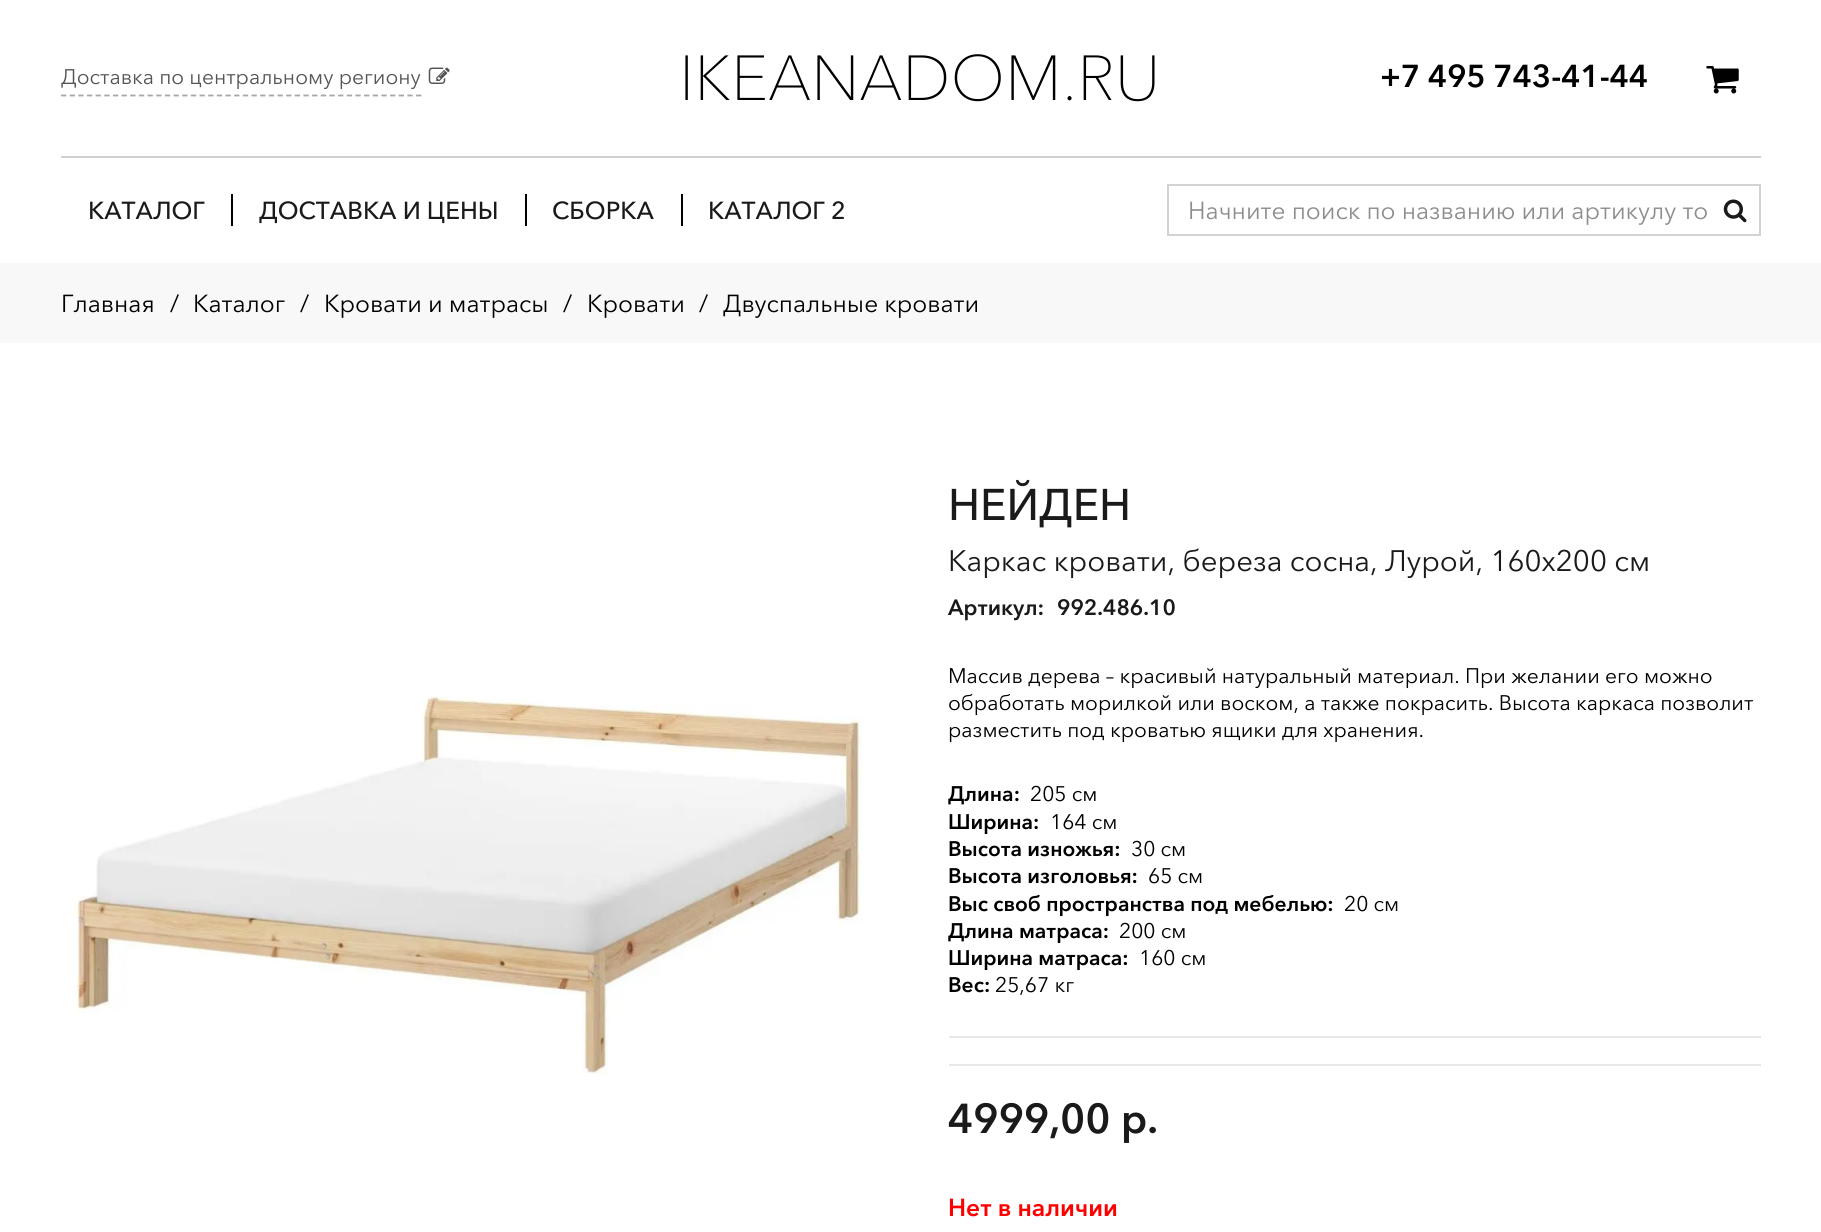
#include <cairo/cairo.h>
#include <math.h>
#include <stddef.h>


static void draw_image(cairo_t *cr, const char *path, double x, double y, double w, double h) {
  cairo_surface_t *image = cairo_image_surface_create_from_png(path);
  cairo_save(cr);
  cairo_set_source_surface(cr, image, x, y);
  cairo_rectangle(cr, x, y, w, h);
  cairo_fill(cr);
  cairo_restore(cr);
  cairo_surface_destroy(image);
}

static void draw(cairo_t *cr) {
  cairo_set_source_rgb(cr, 1, 1, 1);
  cairo_paint(cr);
  cairo_set_source_rgb(cr, 208 / 255.0, 208 / 255.0, 208 / 255.0);
  cairo_rectangle(cr, 61, 156, 1700, 2);
  cairo_fill(cr);
  cairo_new_path(cr);
  cairo_move_to(cr, 61, 95.5);
  cairo_line_to(cr, 422, 95.5);
  cairo_set_source_rgb(cr, 167 / 255.0, 167 / 255.0, 167 / 255.0);
  cairo_set_line_width(cr, 1.8);
  cairo_set_dash(cr, (double[]){5.25, 3.41}, 2, 0);
  cairo_stroke(cr);
  draw_image(cr, "images/1.png", 428, 67, 22, 17);
  draw_image(cr, "images/2.png", 1706, 66, 33, 28);
  cairo_set_source_rgb(cr, 0, 0, 0);
  cairo_rectangle(cr, 231, 194, 2, 32);
  cairo_fill(cr);
  cairo_rectangle(cr, 525, 194, 2, 32);
  cairo_fill(cr);
  cairo_rectangle(cr, 681, 194, 2, 32);
  cairo_fill(cr);
  cairo_rectangle(cr, 1168, 185, 592, 50);
  cairo_set_source_rgb(cr, 210 / 255.0, 210 / 255.0, 210 / 255.0);
  cairo_set_line_width(cr, 2);
  cairo_set_dash(cr, NULL, 0, 0);
  cairo_stroke(cr);
  draw_image(cr, "images/3.png", 1723, 199, 24, 24);
  cairo_set_source_rgb(cr, 248 / 255.0, 248 / 255.0, 248 / 255.0);
  cairo_rectangle(cr, 0, 263, 1821, 80);
  cairo_fill(cr);
  draw_image(cr, "images/4.png", 74, 695, 788, 381);
  cairo_set_source_rgb(cr, 231 / 255.0, 231 / 255.0, 231 / 255.0);
  cairo_rectangle(cr, 949, 1036, 812, 2);
  cairo_fill(cr);
  cairo_rectangle(cr, 949, 1064, 812, 2);
  cairo_fill(cr);
  cairo_select_font_face(cr, "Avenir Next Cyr", CAIRO_FONT_SLANT_NORMAL, CAIRO_FONT_WEIGHT_NORMAL);
  cairo_set_font_size(cr, 21);
  cairo_set_source_rgb(cr, 85 / 255.0, 85 / 255.0, 85 / 255.0);
  cairo_move_to(cr, 61, 84);
  cairo_show_text(cr, "Доставка по центральному региону");
  cairo_select_font_face(cr, "Avenir Next Cyr Thin", CAIRO_FONT_SLANT_NORMAL, CAIRO_FONT_WEIGHT_NORMAL);
  cairo_set_font_size(cr, 63);
  cairo_set_source_rgb(cr, 0, 0, 0);
  cairo_move_to(cr, 679, 100);
  cairo_show_text(cr, "IKEANADOM.RU");
  cairo_select_font_face(cr, "Avenir Next Cyr", CAIRO_FONT_SLANT_NORMAL, CAIRO_FONT_WEIGHT_BOLD);
  cairo_set_font_size(cr, 31.5);
  cairo_move_to(cr, 1380, 87);
  cairo_show_text(cr, "+7 495 743-41-44");
  cairo_select_font_face(cr, "Avenir Next Cyr Medium", CAIRO_FONT_SLANT_NORMAL, CAIRO_FONT_WEIGHT_NORMAL);
  cairo_set_font_size(cr, 24.5);
  cairo_set_source_rgb(cr, 26 / 255.0, 26 / 255.0, 26 / 255.0);
  cairo_move_to(cr, 88, 219);
  cairo_show_text(cr, "КАТАЛОГ");
  cairo_move_to(cr, 259, 219);
  cairo_show_text(cr, "ДОСТАВКА И ЦЕНЫ");
  cairo_move_to(cr, 552, 219);
  cairo_show_text(cr, "СБОРКА");
  cairo_move_to(cr, 708, 219);
  cairo_show_text(cr, "КАТАЛОГ 2");
  cairo_select_font_face(cr, "Avenir Next Cyr", CAIRO_FONT_SLANT_NORMAL, CAIRO_FONT_WEIGHT_NORMAL);
  cairo_set_source_rgb(cr, 141 / 255.0, 141 / 255.0, 141 / 255.0);
  cairo_move_to(cr, 1188, 219);
  cairo_show_text(cr, "Начните поиск по названию или артикулу то");
  cairo_set_source_rgb(cr, 0, 0, 0);
  cairo_move_to(cr, 61, 312);
  cairo_show_text(cr, "Главная");
  cairo_move_to(cr, 170, 312);
  cairo_show_text(cr, "/");
  cairo_move_to(cr, 193, 312);
  cairo_show_text(cr, "Каталог");
  cairo_move_to(cr, 300, 312);
  cairo_show_text(cr, "/");
  cairo_move_to(cr, 324, 312);
  cairo_show_text(cr, "Кровати и матрасы");
  cairo_move_to(cr, 563, 312);
  cairo_show_text(cr, "/");
  cairo_move_to(cr, 587, 312);
  cairo_show_text(cr, "Кровати");
  cairo_move_to(cr, 699, 312);
  cairo_show_text(cr, "/");
  cairo_move_to(cr, 723, 312);
  cairo_show_text(cr, "Двуспальные кровати");
  cairo_select_font_face(cr, "Avenir Next Cyr Medium", CAIRO_FONT_SLANT_NORMAL, CAIRO_FONT_WEIGHT_NORMAL);
  cairo_set_font_size(cr, 44);
  cairo_set_source_rgb(cr, 26 / 255.0, 26 / 255.0, 26 / 255.0);
  cairo_move_to(cr, 948, 520);
  cairo_show_text(cr, "НЕЙДЕН");
  cairo_select_font_face(cr, "Avenir Next Cyr", CAIRO_FONT_SLANT_NORMAL, CAIRO_FONT_WEIGHT_NORMAL);
  cairo_set_font_size(cr, 29.4);
  cairo_move_to(cr, 948, 571);
  cairo_show_text(cr, "Каркас кровати, береза сосна, Лурой, 160x200 см");
  cairo_select_font_face(cr, "Avenir Next Cyr", CAIRO_FONT_SLANT_NORMAL, CAIRO_FONT_WEIGHT_BOLD);
  cairo_set_font_size(cr, 22);
  cairo_move_to(cr, 948, 615);
  cairo_show_text(cr, "Артикул:");
  cairo_move_to(cr, 1057, 615);
  cairo_show_text(cr, "992.486.10");
  cairo_select_font_face(cr, "Avenir Next Cyr", CAIRO_FONT_SLANT_NORMAL, CAIRO_FONT_WEIGHT_NORMAL);
  cairo_set_font_size(cr, 21);
  cairo_set_source_rgb(cr, 0, 0, 0);
  cairo_move_to(cr, 948, 683);
  cairo_show_text(cr, "Массив дерева – красивый натуральный материал. При желании его можно");
  cairo_move_to(cr, 948, 710);
  cairo_show_text(cr, "обработать морилкой или воском, а также покрасить. Высота каркаса позволит");
  cairo_move_to(cr, 948, 737);
  cairo_show_text(cr, "разместить под кроватью ящики для хранения.");
  cairo_select_font_face(cr, "Avenir Next Cyr", CAIRO_FONT_SLANT_NORMAL, CAIRO_FONT_WEIGHT_BOLD);
  cairo_move_to(cr, 948, 801);
  cairo_show_text(cr, "Длина:");
  cairo_select_font_face(cr, "Avenir Next Cyr", CAIRO_FONT_SLANT_NORMAL, CAIRO_FONT_WEIGHT_NORMAL);
  cairo_move_to(cr, 1030, 801);
  cairo_show_text(cr, "205 см");
  cairo_select_font_face(cr, "Avenir Next Cyr", CAIRO_FONT_SLANT_NORMAL, CAIRO_FONT_WEIGHT_BOLD);
  cairo_move_to(cr, 948, 829);
  cairo_show_text(cr, "Ширина:");
  cairo_select_font_face(cr, "Avenir Next Cyr", CAIRO_FONT_SLANT_NORMAL, CAIRO_FONT_WEIGHT_NORMAL);
  cairo_move_to(cr, 1050, 829);
  cairo_show_text(cr, "164 см");
  cairo_select_font_face(cr, "Avenir Next Cyr", CAIRO_FONT_SLANT_NORMAL, CAIRO_FONT_WEIGHT_BOLD);
  cairo_move_to(cr, 948, 856);
  cairo_show_text(cr, "Высота изножья:");
  cairo_select_font_face(cr, "Avenir Next Cyr", CAIRO_FONT_SLANT_NORMAL, CAIRO_FONT_WEIGHT_NORMAL);
  cairo_move_to(cr, 1131, 856);
  cairo_show_text(cr, "30 см");
  cairo_select_font_face(cr, "Avenir Next Cyr", CAIRO_FONT_SLANT_NORMAL, CAIRO_FONT_WEIGHT_BOLD);
  cairo_move_to(cr, 948, 883);
  cairo_show_text(cr, "Высота изголовья:");
  cairo_select_font_face(cr, "Avenir Next Cyr", CAIRO_FONT_SLANT_NORMAL, CAIRO_FONT_WEIGHT_NORMAL);
  cairo_move_to(cr, 1148, 883);
  cairo_show_text(cr, "65 см");
  cairo_select_font_face(cr, "Avenir Next Cyr", CAIRO_FONT_SLANT_NORMAL, CAIRO_FONT_WEIGHT_BOLD);
  cairo_move_to(cr, 948, 911);
  cairo_show_text(cr, "Выс своб пространства под мебелью:");
  cairo_select_font_face(cr, "Avenir Next Cyr", CAIRO_FONT_SLANT_NORMAL, CAIRO_FONT_WEIGHT_NORMAL);
  cairo_move_to(cr, 1344, 911);
  cairo_show_text(cr, "20 см");
  cairo_select_font_face(cr, "Avenir Next Cyr", CAIRO_FONT_SLANT_NORMAL, CAIRO_FONT_WEIGHT_BOLD);
  cairo_move_to(cr, 948, 938);
  cairo_show_text(cr, "Длина матраса:");
  cairo_select_font_face(cr, "Avenir Next Cyr", CAIRO_FONT_SLANT_NORMAL, CAIRO_FONT_WEIGHT_NORMAL);
  cairo_move_to(cr, 1119, 938);
  cairo_show_text(cr, "200 см");
  cairo_select_font_face(cr, "Avenir Next Cyr", CAIRO_FONT_SLANT_NORMAL, CAIRO_FONT_WEIGHT_BOLD);
  cairo_move_to(cr, 948, 965);
  cairo_show_text(cr, "Ширина матраса:");
  cairo_select_font_face(cr, "Avenir Next Cyr", CAIRO_FONT_SLANT_NORMAL, CAIRO_FONT_WEIGHT_NORMAL);
  cairo_move_to(cr, 1139, 965);
  cairo_show_text(cr, "160 см");
  cairo_select_font_face(cr, "Avenir Next Cyr", CAIRO_FONT_SLANT_NORMAL, CAIRO_FONT_WEIGHT_BOLD);
  cairo_move_to(cr, 948, 992);
  cairo_show_text(cr, "Вес:");
  cairo_select_font_face(cr, "Avenir Next Cyr", CAIRO_FONT_SLANT_NORMAL, CAIRO_FONT_WEIGHT_NORMAL);
  cairo_move_to(cr, 995, 992);
  cairo_show_text(cr, "25,67 кг");
  cairo_select_font_face(cr, "Avenir Next Cyr", CAIRO_FONT_SLANT_NORMAL, CAIRO_FONT_WEIGHT_BOLD);
  cairo_set_font_size(cr, 41.5);
  cairo_set_source_rgb(cr, 26 / 255.0, 26 / 255.0, 26 / 255.0);
  cairo_move_to(cr, 948, 1133);
  cairo_show_text(cr, "4999,00 р.");
  cairo_set_font_size(cr, 24.5);
  cairo_set_source_rgb(cr, 1, 0, 0);
  cairo_move_to(cr, 948, 1216);
  cairo_show_text(cr, "Нет в наличии");
}

int main(void) {
  cairo_surface_t *surface = cairo_image_surface_create(CAIRO_FORMAT_RGB24, 1821, 1232);
  cairo_t *cr = cairo_create(surface);
  cairo_font_options_t *options = cairo_font_options_create();
  cairo_font_options_set_hint_metrics(options, CAIRO_HINT_METRICS_OFF);
  cairo_font_options_set_hint_style(options, CAIRO_HINT_STYLE_NONE);
  cairo_set_font_options(cr, options);
  cairo_set_miter_limit(cr, 4);
  draw(cr);
  cairo_surface_write_to_png(surface, "out.png");
  cairo_font_options_destroy(options);
  cairo_destroy(cr);
  cairo_surface_destroy(surface);
  return 0;
}
